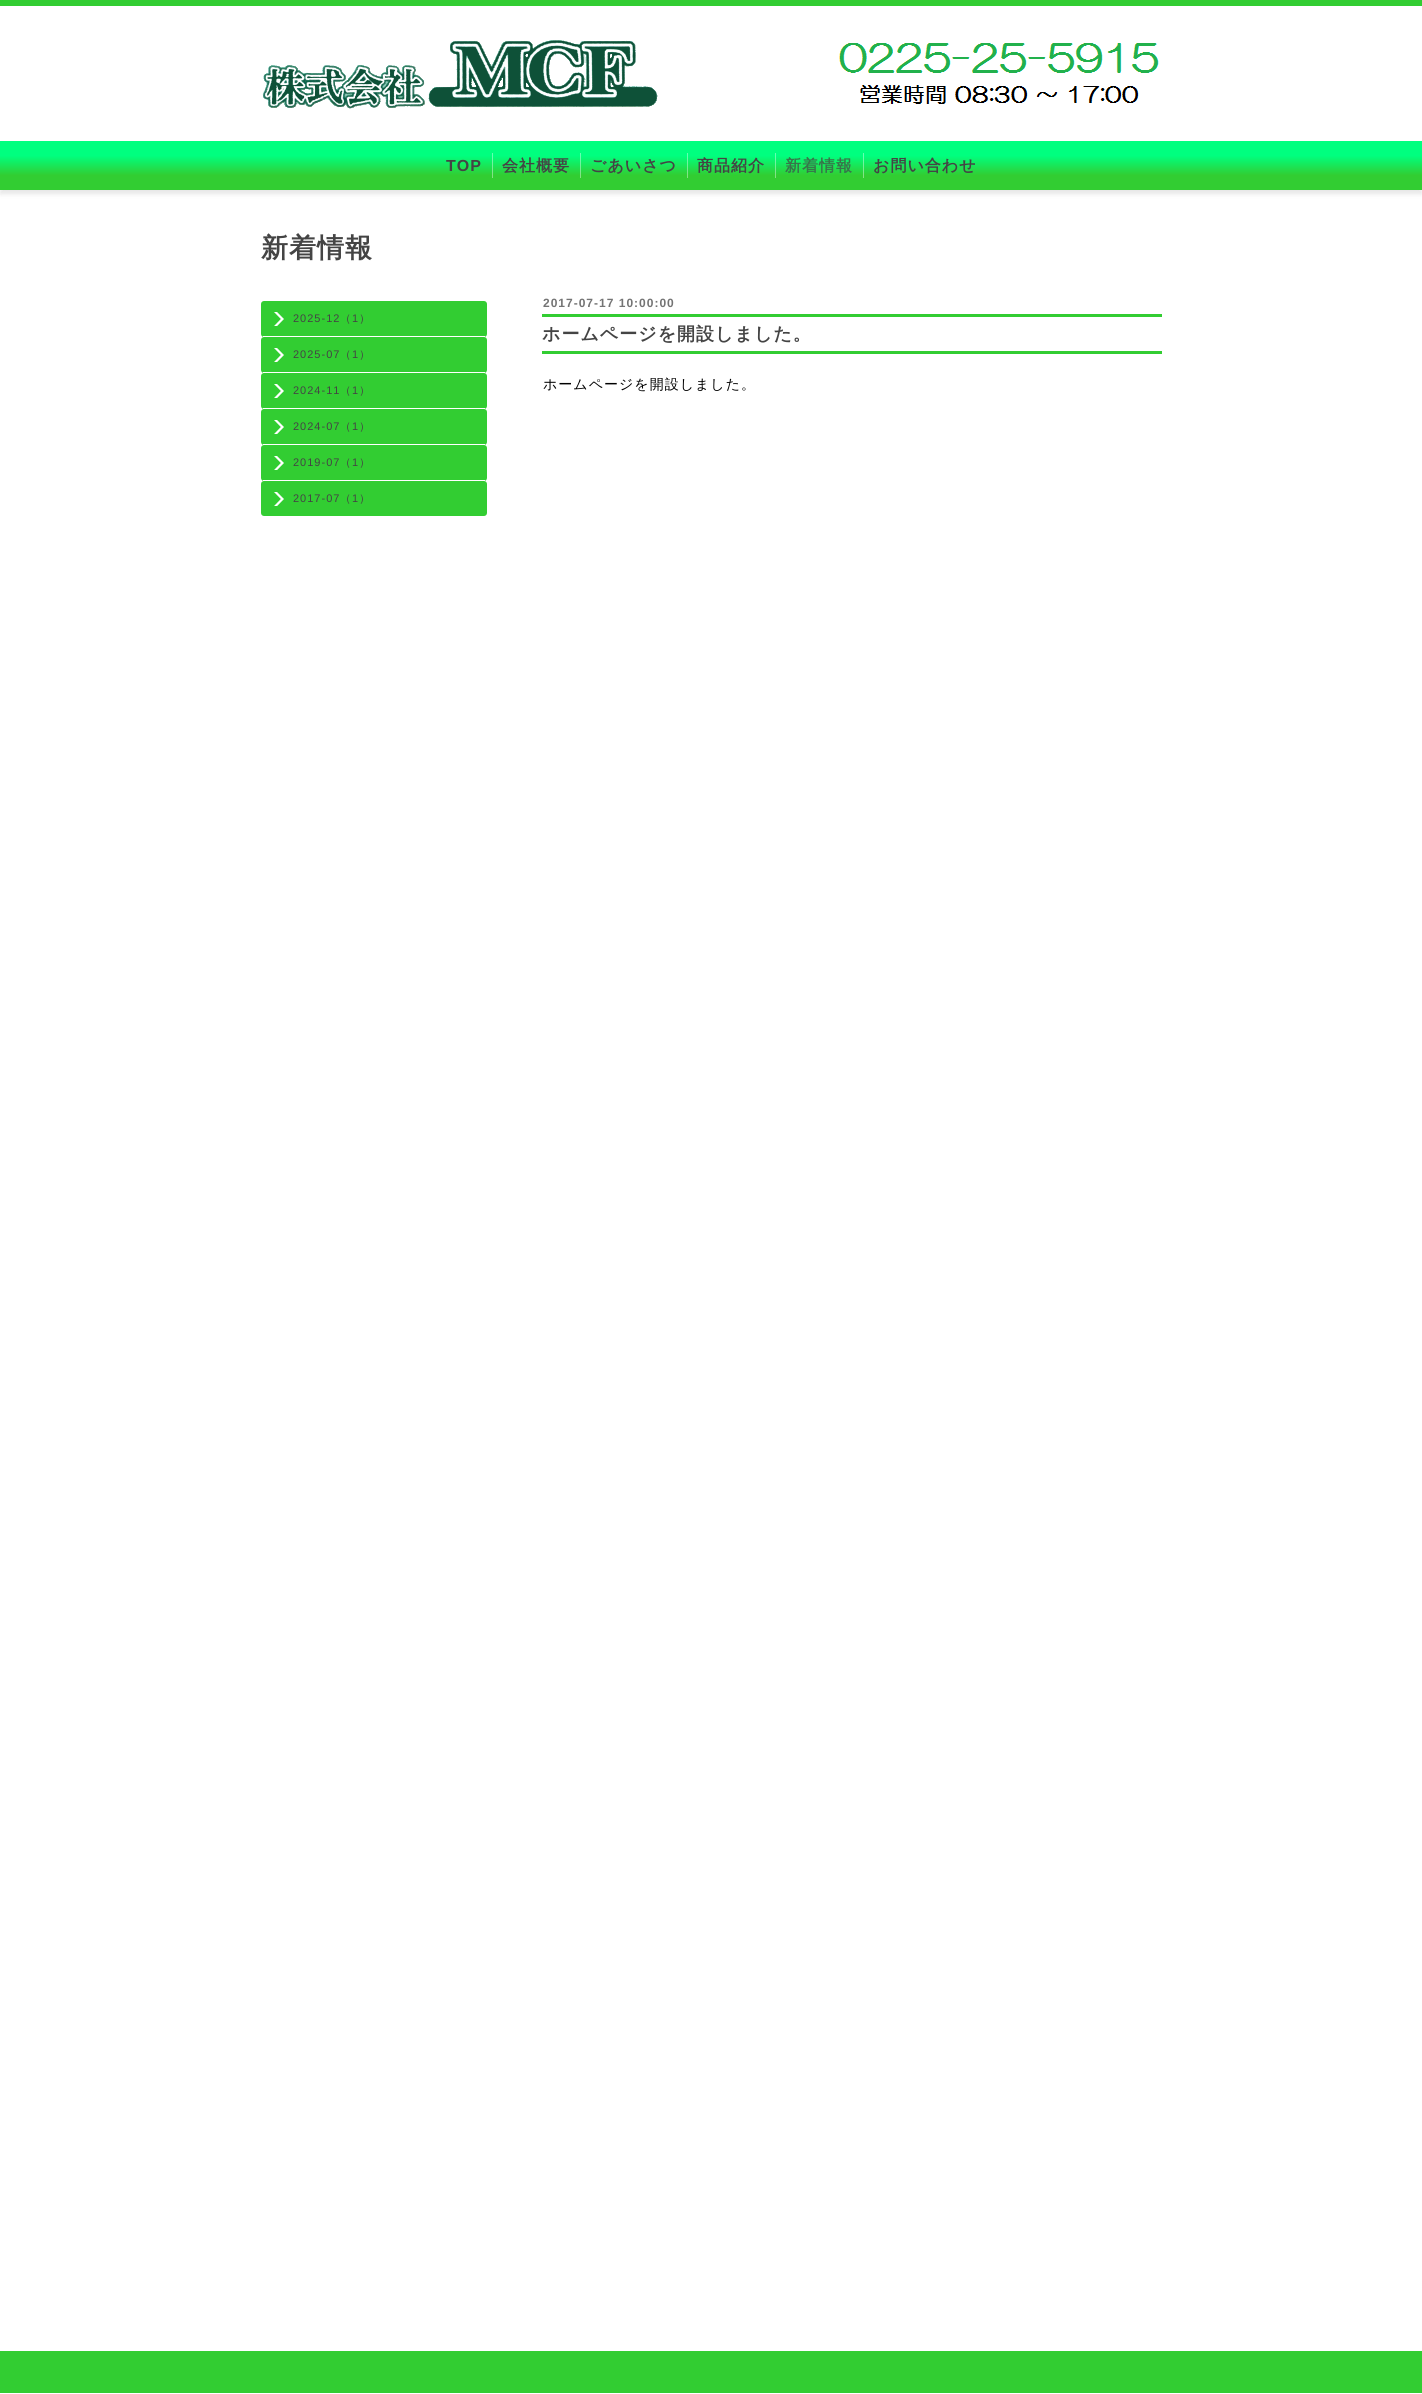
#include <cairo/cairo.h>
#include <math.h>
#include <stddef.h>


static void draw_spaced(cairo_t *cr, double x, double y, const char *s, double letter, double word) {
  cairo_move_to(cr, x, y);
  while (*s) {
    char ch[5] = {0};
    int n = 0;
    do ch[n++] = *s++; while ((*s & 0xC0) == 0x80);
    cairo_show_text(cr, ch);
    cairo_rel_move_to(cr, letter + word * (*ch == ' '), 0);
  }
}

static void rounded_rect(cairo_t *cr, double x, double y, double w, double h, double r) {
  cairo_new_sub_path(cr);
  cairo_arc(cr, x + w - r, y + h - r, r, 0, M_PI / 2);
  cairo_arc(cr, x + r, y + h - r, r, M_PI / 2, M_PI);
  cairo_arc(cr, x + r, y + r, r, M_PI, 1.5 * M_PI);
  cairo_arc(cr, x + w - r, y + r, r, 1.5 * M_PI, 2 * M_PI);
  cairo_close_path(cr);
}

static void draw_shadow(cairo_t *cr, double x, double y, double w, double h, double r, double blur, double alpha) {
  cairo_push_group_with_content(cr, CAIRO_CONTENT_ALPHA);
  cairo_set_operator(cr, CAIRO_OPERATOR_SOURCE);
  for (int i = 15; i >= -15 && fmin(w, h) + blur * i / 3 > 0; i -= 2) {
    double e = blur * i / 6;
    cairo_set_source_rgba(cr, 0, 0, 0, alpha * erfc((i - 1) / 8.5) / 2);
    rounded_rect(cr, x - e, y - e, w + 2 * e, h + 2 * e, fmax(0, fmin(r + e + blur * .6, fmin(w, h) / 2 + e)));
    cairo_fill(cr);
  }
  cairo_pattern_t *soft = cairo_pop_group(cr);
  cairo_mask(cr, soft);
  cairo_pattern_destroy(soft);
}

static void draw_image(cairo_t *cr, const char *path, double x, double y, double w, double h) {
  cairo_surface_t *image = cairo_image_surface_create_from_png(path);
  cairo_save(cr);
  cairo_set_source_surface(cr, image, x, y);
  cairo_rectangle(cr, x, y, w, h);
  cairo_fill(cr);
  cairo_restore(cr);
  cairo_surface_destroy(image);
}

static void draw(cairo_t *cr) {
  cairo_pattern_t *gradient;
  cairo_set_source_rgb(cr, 1, 1, 1);
  cairo_paint(cr);
  cairo_set_source_rgb(cr, 50 / 255.0, 205 / 255.0, 50 / 255.0);
  cairo_rectangle(cr, 0, 0, 1422, 6);
  cairo_fill(cr);
  draw_image(cr, "images/1.png", 262, 40, 396, 69);
  draw_image(cr, "images/2.png", 839, 43, 320, 61);
  cairo_set_source_rgb(cr, 0, 0, 0);
  draw_shadow(cr, 0, 145, 1422, 49, 0, 2.5, 0.1);
  gradient = cairo_pattern_create_linear(0, 141, 0, 190);
  cairo_pattern_add_color_stop_rgba(gradient, 0, 0, 1, 127 / 255.0, 1);
  cairo_pattern_add_color_stop_rgba(gradient, 0.3, 0, 1, 127 / 255.0, 1);
  cairo_pattern_add_color_stop_rgba(gradient, 0.7, 50 / 255.0, 205 / 255.0, 50 / 255.0, 1);
  cairo_pattern_add_color_stop_rgba(gradient, 1, 50 / 255.0, 205 / 255.0, 50 / 255.0, 1);
  cairo_set_source(cr, gradient);
  cairo_pattern_destroy(gradient);
  cairo_rectangle(cr, 0, 141, 1422, 49);
  cairo_fill(cr);
  gradient = cairo_pattern_create_linear(0, 141, 0, 190);
  cairo_pattern_add_color_stop_rgba(gradient, 0, 102 / 255.0, 1, 178 / 255.0, 1);
  cairo_pattern_add_color_stop_rgba(gradient, 0.3, 102 / 255.0, 1, 178 / 255.0, 1);
  cairo_pattern_add_color_stop_rgba(gradient, 0.7, 132 / 255.0, 225 / 255.0, 132 / 255.0, 1);
  cairo_pattern_add_color_stop_rgba(gradient, 1, 132 / 255.0, 225 / 255.0, 132 / 255.0, 1);
  cairo_set_source(cr, gradient);
  cairo_pattern_destroy(gradient);
  cairo_rectangle(cr, 863, 153, 1, 25);
  cairo_fill(cr);
  cairo_rectangle(cr, 775, 153, 1, 25);
  cairo_fill(cr);
  cairo_rectangle(cr, 687, 153, 1, 25);
  cairo_fill(cr);
  cairo_rectangle(cr, 580, 153, 1, 25);
  cairo_fill(cr);
  cairo_rectangle(cr, 492, 153, 1, 25);
  cairo_fill(cr);
  cairo_set_source_rgb(cr, 50 / 255.0, 205 / 255.0, 50 / 255.0);
  cairo_rectangle(cr, 542, 314, 620, 3);
  cairo_fill(cr);
  cairo_rectangle(cr, 542, 351, 620, 3);
  cairo_fill(cr);
  rounded_rect(cr, 261, 301, 226, 36, 3);
  cairo_fill(cr);
  cairo_set_source_rgb(cr, 1, 1, 1);
  cairo_rectangle(cr, 263, 336, 222, 1);
  cairo_fill(cr);
  draw_image(cr, "images/3.png", 274, 312, 10, 14);
  cairo_set_source_rgb(cr, 50 / 255.0, 205 / 255.0, 50 / 255.0);
  rounded_rect(cr, 261, 337, 226, 36, 3);
  cairo_fill(cr);
  cairo_set_source_rgb(cr, 1, 1, 1);
  cairo_rectangle(cr, 263, 372, 222, 1);
  cairo_fill(cr);
  draw_image(cr, "images/3.png", 274, 348, 10, 14);
  cairo_set_source_rgb(cr, 50 / 255.0, 205 / 255.0, 50 / 255.0);
  rounded_rect(cr, 261, 373, 226, 36, 3);
  cairo_fill(cr);
  cairo_set_source_rgb(cr, 1, 1, 1);
  cairo_rectangle(cr, 263, 408, 222, 1);
  cairo_fill(cr);
  draw_image(cr, "images/3.png", 274, 384, 10, 14);
  cairo_set_source_rgb(cr, 50 / 255.0, 205 / 255.0, 50 / 255.0);
  rounded_rect(cr, 261, 409, 226, 36, 3);
  cairo_fill(cr);
  cairo_set_source_rgb(cr, 1, 1, 1);
  cairo_rectangle(cr, 263, 444, 222, 1);
  cairo_fill(cr);
  draw_image(cr, "images/3.png", 274, 420, 10, 14);
  cairo_set_source_rgb(cr, 50 / 255.0, 205 / 255.0, 50 / 255.0);
  rounded_rect(cr, 261, 445, 226, 36, 3);
  cairo_fill(cr);
  cairo_set_source_rgb(cr, 1, 1, 1);
  cairo_rectangle(cr, 263, 480, 222, 1);
  cairo_fill(cr);
  draw_image(cr, "images/3.png", 274, 456, 10, 14);
  cairo_set_source_rgb(cr, 50 / 255.0, 205 / 255.0, 50 / 255.0);
  rounded_rect(cr, 261, 481, 226, 35, 3);
  cairo_fill(cr);
  draw_image(cr, "images/3.png", 274, 492, 10, 14);
  cairo_rectangle(cr, 0, 2351, 1422, 42);
  cairo_fill(cr);
  cairo_select_font_face(cr, "Liberation Sans", CAIRO_FONT_SLANT_NORMAL, CAIRO_FONT_WEIGHT_BOLD);
  cairo_set_font_size(cr, 16);
  cairo_set_source_rgb(cr, 68 / 255.0, 68 / 255.0, 68 / 255.0);
  draw_spaced(cr, 446, 171, "TOP", 1, 0);
  cairo_select_font_face(cr, "WenQuanYi Zen Hei", CAIRO_FONT_SLANT_NORMAL, CAIRO_FONT_WEIGHT_BOLD);
  draw_spaced(cr, 502, 171, "会社概要", 1, 0);
  draw_spaced(cr, 590, 171, "ごあいさつ", 1, 0);
  draw_spaced(cr, 697, 171, "商品紹介", 1, 0);
  cairo_set_source_rgb(cr, 55 / 255.0, 117 / 255.0, 74 / 255.0);
  draw_spaced(cr, 785, 171, "新着情報", 1, 0);
  cairo_set_source_rgb(cr, 68 / 255.0, 68 / 255.0, 68 / 255.0);
  draw_spaced(cr, 873, 171, "お問い合わせ", 1, 0);
  cairo_set_font_size(cr, 27);
  draw_spaced(cr, 261, 257, "新着情報", 1, 0);
  cairo_select_font_face(cr, "Liberation Sans", CAIRO_FONT_SLANT_NORMAL, CAIRO_FONT_WEIGHT_BOLD);
  cairo_set_font_size(cr, 12);
  cairo_set_source_rgb(cr, 116 / 255.0, 116 / 255.0, 116 / 255.0);
  draw_spaced(cr, 543, 307, "2017-07-17 10:00:00", 1, 0);
  cairo_select_font_face(cr, "WenQuanYi Zen Hei", CAIRO_FONT_SLANT_NORMAL, CAIRO_FONT_WEIGHT_BOLD);
  cairo_set_font_size(cr, 18);
  cairo_set_source_rgb(cr, 68 / 255.0, 68 / 255.0, 68 / 255.0);
  draw_spaced(cr, 542, 340, "ホームページを開設しました。", 1, 0);
  cairo_select_font_face(cr, "WenQuanYi Zen Hei Medium", CAIRO_FONT_SLANT_NORMAL, CAIRO_FONT_WEIGHT_NORMAL);
  cairo_set_font_size(cr, 14);
  cairo_set_source_rgb(cr, 0, 0, 0);
  draw_spaced(cr, 543, 389, "ホームページを開設しました。", 1, 0);
  cairo_select_font_face(cr, "Liberation Sans", CAIRO_FONT_SLANT_NORMAL, CAIRO_FONT_WEIGHT_NORMAL);
  cairo_set_font_size(cr, 11);
  cairo_set_source_rgb(cr, 68 / 255.0, 68 / 255.0, 68 / 255.0);
  draw_spaced(cr, 293, 322, "2025-12", 1, 0);
  cairo_select_font_face(cr, "WenQuanYi Zen Hei Medium", CAIRO_FONT_SLANT_NORMAL, CAIRO_FONT_WEIGHT_NORMAL);
  draw_spaced(cr, 340, 322, "（", 1, 0);
  cairo_select_font_face(cr, "Liberation Sans", CAIRO_FONT_SLANT_NORMAL, CAIRO_FONT_WEIGHT_NORMAL);
  draw_spaced(cr, 352, 322, "1", 1, 0);
  cairo_select_font_face(cr, "WenQuanYi Zen Hei Medium", CAIRO_FONT_SLANT_NORMAL, CAIRO_FONT_WEIGHT_NORMAL);
  draw_spaced(cr, 359, 322, "）", 1, 0);
  cairo_select_font_face(cr, "Liberation Sans", CAIRO_FONT_SLANT_NORMAL, CAIRO_FONT_WEIGHT_NORMAL);
  draw_spaced(cr, 293, 358, "2025-07", 1, 0);
  cairo_select_font_face(cr, "WenQuanYi Zen Hei Medium", CAIRO_FONT_SLANT_NORMAL, CAIRO_FONT_WEIGHT_NORMAL);
  draw_spaced(cr, 340, 358, "（", 1, 0);
  cairo_select_font_face(cr, "Liberation Sans", CAIRO_FONT_SLANT_NORMAL, CAIRO_FONT_WEIGHT_NORMAL);
  draw_spaced(cr, 352, 358, "1", 1, 0);
  cairo_select_font_face(cr, "WenQuanYi Zen Hei Medium", CAIRO_FONT_SLANT_NORMAL, CAIRO_FONT_WEIGHT_NORMAL);
  draw_spaced(cr, 359, 358, "）", 1, 0);
  cairo_select_font_face(cr, "Liberation Sans", CAIRO_FONT_SLANT_NORMAL, CAIRO_FONT_WEIGHT_NORMAL);
  draw_spaced(cr, 293, 394, "2024-11", 1, 0);
  cairo_select_font_face(cr, "WenQuanYi Zen Hei Medium", CAIRO_FONT_SLANT_NORMAL, CAIRO_FONT_WEIGHT_NORMAL);
  draw_spaced(cr, 340, 394, "（", 1, 0);
  cairo_select_font_face(cr, "Liberation Sans", CAIRO_FONT_SLANT_NORMAL, CAIRO_FONT_WEIGHT_NORMAL);
  draw_spaced(cr, 352, 394, "1", 1, 0);
  cairo_select_font_face(cr, "WenQuanYi Zen Hei Medium", CAIRO_FONT_SLANT_NORMAL, CAIRO_FONT_WEIGHT_NORMAL);
  draw_spaced(cr, 359, 394, "）", 1, 0);
  cairo_select_font_face(cr, "Liberation Sans", CAIRO_FONT_SLANT_NORMAL, CAIRO_FONT_WEIGHT_NORMAL);
  draw_spaced(cr, 293, 430, "2024-07", 1, 0);
  cairo_select_font_face(cr, "WenQuanYi Zen Hei Medium", CAIRO_FONT_SLANT_NORMAL, CAIRO_FONT_WEIGHT_NORMAL);
  draw_spaced(cr, 340, 430, "（", 1, 0);
  cairo_select_font_face(cr, "Liberation Sans", CAIRO_FONT_SLANT_NORMAL, CAIRO_FONT_WEIGHT_NORMAL);
  draw_spaced(cr, 352, 430, "1", 1, 0);
  cairo_select_font_face(cr, "WenQuanYi Zen Hei Medium", CAIRO_FONT_SLANT_NORMAL, CAIRO_FONT_WEIGHT_NORMAL);
  draw_spaced(cr, 359, 430, "）", 1, 0);
  cairo_select_font_face(cr, "Liberation Sans", CAIRO_FONT_SLANT_NORMAL, CAIRO_FONT_WEIGHT_NORMAL);
  draw_spaced(cr, 293, 466, "2019-07", 1, 0);
  cairo_select_font_face(cr, "WenQuanYi Zen Hei Medium", CAIRO_FONT_SLANT_NORMAL, CAIRO_FONT_WEIGHT_NORMAL);
  draw_spaced(cr, 340, 466, "（", 1, 0);
  cairo_select_font_face(cr, "Liberation Sans", CAIRO_FONT_SLANT_NORMAL, CAIRO_FONT_WEIGHT_NORMAL);
  draw_spaced(cr, 352, 466, "1", 1, 0);
  cairo_select_font_face(cr, "WenQuanYi Zen Hei Medium", CAIRO_FONT_SLANT_NORMAL, CAIRO_FONT_WEIGHT_NORMAL);
  draw_spaced(cr, 359, 466, "）", 1, 0);
  cairo_select_font_face(cr, "Liberation Sans", CAIRO_FONT_SLANT_NORMAL, CAIRO_FONT_WEIGHT_NORMAL);
  draw_spaced(cr, 293, 502, "2017-07", 1, 0);
  cairo_select_font_face(cr, "WenQuanYi Zen Hei Medium", CAIRO_FONT_SLANT_NORMAL, CAIRO_FONT_WEIGHT_NORMAL);
  draw_spaced(cr, 340, 502, "（", 1, 0);
  cairo_select_font_face(cr, "Liberation Sans", CAIRO_FONT_SLANT_NORMAL, CAIRO_FONT_WEIGHT_NORMAL);
  draw_spaced(cr, 352, 502, "1", 1, 0);
  cairo_select_font_face(cr, "WenQuanYi Zen Hei Medium", CAIRO_FONT_SLANT_NORMAL, CAIRO_FONT_WEIGHT_NORMAL);
  draw_spaced(cr, 359, 502, "）", 1, 0);
}

int main(void) {
  cairo_surface_t *surface = cairo_image_surface_create(CAIRO_FORMAT_RGB24, 1422, 2394);
  cairo_t *cr = cairo_create(surface);
  cairo_font_options_t *options = cairo_font_options_create();
  cairo_font_options_set_hint_metrics(options, CAIRO_HINT_METRICS_OFF);
  cairo_font_options_set_hint_style(options, CAIRO_HINT_STYLE_NONE);
  cairo_set_font_options(cr, options);
  cairo_set_miter_limit(cr, 4);
  draw(cr);
  cairo_surface_write_to_png(surface, "out.png");
  cairo_font_options_destroy(options);
  cairo_destroy(cr);
  cairo_surface_destroy(surface);
  return 0;
}
